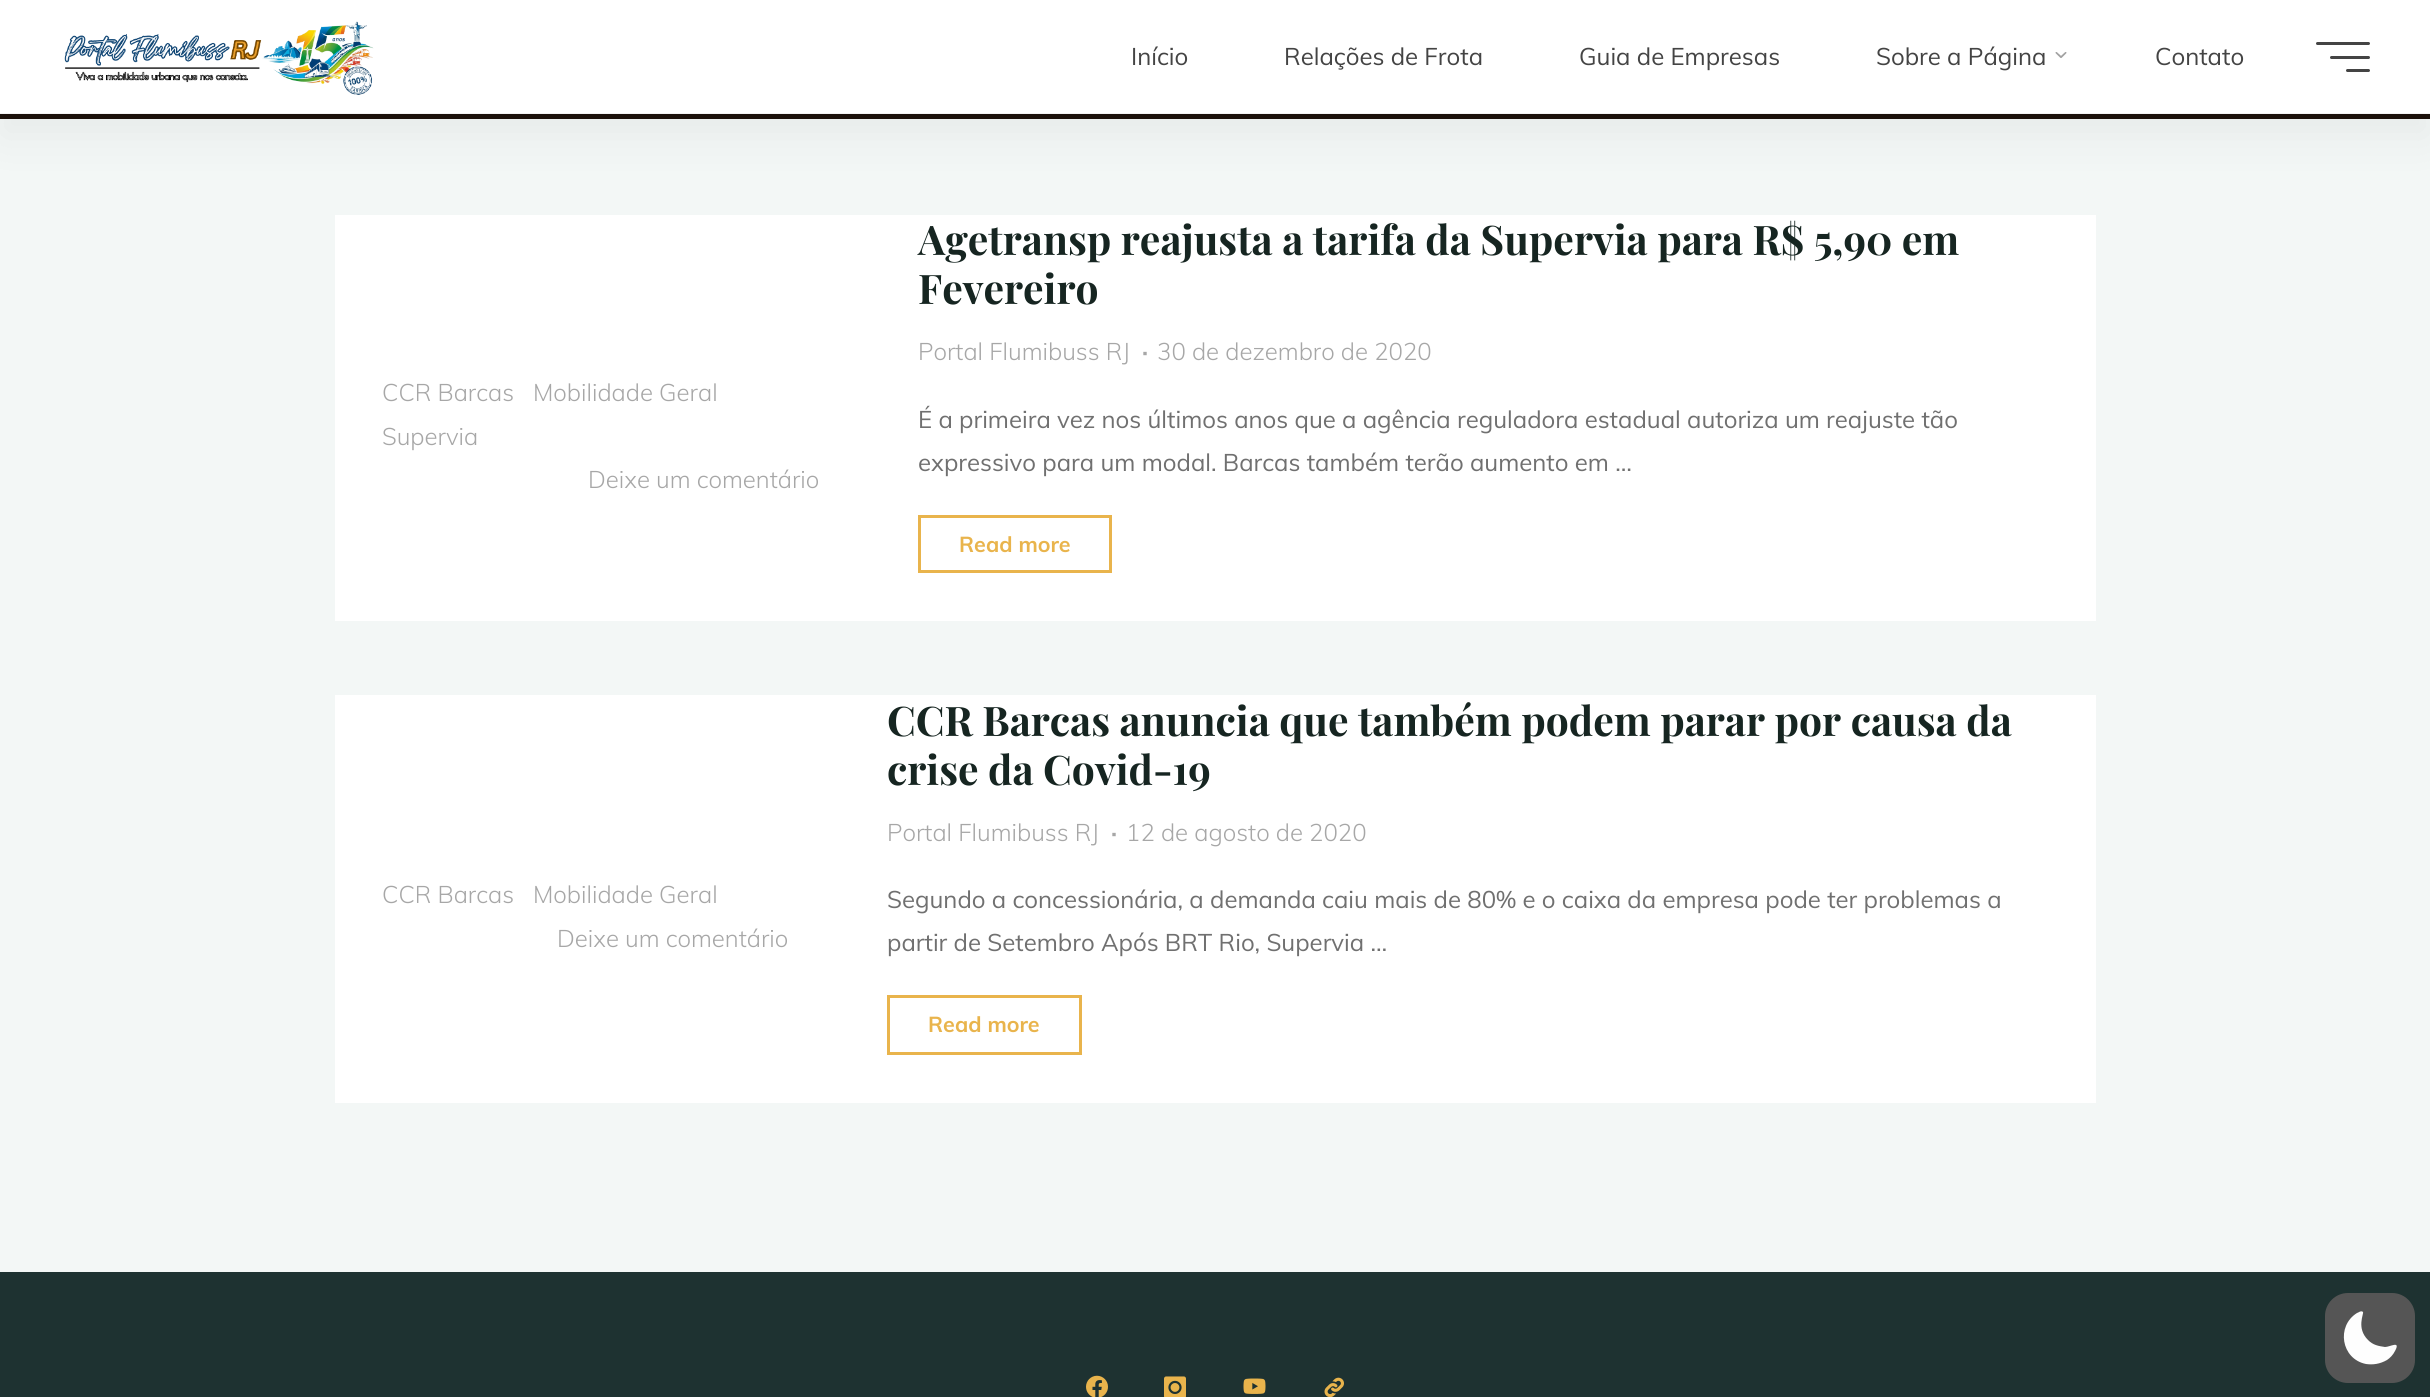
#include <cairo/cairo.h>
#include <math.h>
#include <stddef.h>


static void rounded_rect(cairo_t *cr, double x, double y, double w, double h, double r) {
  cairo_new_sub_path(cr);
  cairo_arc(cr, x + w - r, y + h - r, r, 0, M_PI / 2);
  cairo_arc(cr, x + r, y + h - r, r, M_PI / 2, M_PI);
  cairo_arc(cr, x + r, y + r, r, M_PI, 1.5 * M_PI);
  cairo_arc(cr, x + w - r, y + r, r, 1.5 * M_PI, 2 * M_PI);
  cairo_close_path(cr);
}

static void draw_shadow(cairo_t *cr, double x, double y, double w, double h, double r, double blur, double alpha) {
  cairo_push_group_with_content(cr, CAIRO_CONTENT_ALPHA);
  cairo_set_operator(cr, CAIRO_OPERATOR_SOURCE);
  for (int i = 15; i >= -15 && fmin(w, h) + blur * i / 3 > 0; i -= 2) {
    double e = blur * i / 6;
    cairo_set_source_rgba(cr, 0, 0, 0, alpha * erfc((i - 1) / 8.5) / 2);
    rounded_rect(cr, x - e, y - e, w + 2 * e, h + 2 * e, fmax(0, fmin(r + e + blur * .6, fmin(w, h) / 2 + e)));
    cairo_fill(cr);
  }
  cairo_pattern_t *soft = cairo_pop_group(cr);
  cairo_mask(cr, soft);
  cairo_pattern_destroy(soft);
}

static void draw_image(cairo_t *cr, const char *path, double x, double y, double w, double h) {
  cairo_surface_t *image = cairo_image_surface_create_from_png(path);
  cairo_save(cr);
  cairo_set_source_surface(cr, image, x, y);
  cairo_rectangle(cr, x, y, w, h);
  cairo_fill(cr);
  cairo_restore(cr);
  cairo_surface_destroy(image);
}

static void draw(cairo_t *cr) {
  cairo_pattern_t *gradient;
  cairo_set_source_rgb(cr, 243 / 255.0, 247 / 255.0, 246 / 255.0);
  cairo_paint(cr);
  gradient = cairo_pattern_create_linear(1215, -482, 1215, 119);
  cairo_pattern_add_color_stop_rgba(gradient, 0, 8 / 255.0, 65 / 255.0, 92 / 255.0, 1);
  cairo_pattern_add_color_stop_rgba(gradient, 1, 28 / 255.0, 17 / 255.0, 10 / 255.0, 1);
  cairo_set_source(cr, gradient);
  cairo_pattern_destroy(gradient);
  cairo_rectangle(cr, 0, 114, 2430, 5);
  cairo_fill(cr);
  cairo_set_source_rgb(cr, 0, 0, 0);
  draw_shadow(cr, 0, 23, 2430, 114, 0, 22.5, 0.05);
  cairo_set_source_rgb(cr, 1, 1, 1);
  cairo_rectangle(cr, 0, 0, 2430, 114);
  cairo_fill(cr);
  cairo_set_source_rgba(cr, 0, 0, 0, 0.05);
  cairo_rectangle(cr, 0, 113, 2430, 1);
  cairo_fill(cr);
  draw_image(cr, "images/1.png", 64, 21, 310, 74);
  draw_image(cr, "images/2.png", 2055, 52, 12, 6);
  cairo_set_source_rgb(cr, 68 / 255.0, 68 / 255.0, 68 / 255.0);
  rounded_rect(cr, 2316, 42, 54, 3, 1.5);
  cairo_fill(cr);
  rounded_rect(cr, 2330, 56, 40, 3, 1.5);
  cairo_fill(cr);
  rounded_rect(cr, 2346, 69, 24, 3, 1.5);
  cairo_fill(cr);
  cairo_set_source_rgb(cr, 1, 1, 1);
  cairo_rectangle(cr, 335, 215, 1761, 406);
  cairo_fill(cr);
  cairo_rectangle(cr, 919.5, 516.5, 191, 55);
  cairo_set_source_rgb(cr, 233 / 255.0, 180 / 255.0, 76 / 255.0);
  cairo_set_line_width(cr, 3);
  cairo_stroke(cr);
  cairo_set_source_rgb(cr, 1, 1, 1);
  cairo_rectangle(cr, 335, 695, 1761, 408);
  cairo_fill(cr);
  cairo_rectangle(cr, 888.5, 996.5, 192, 57);
  cairo_set_source_rgb(cr, 233 / 255.0, 180 / 255.0, 76 / 255.0);
  cairo_stroke(cr);
  cairo_set_source_rgb(cr, 30 / 255.0, 50 / 255.0, 49 / 255.0);
  cairo_rectangle(cr, 0, 1272, 2430, 125);
  cairo_fill(cr);
  draw_image(cr, "images/3.png", 1086, 1375, 22, 22);
  draw_image(cr, "images/4.png", 1164, 1376, 22, 21);
  draw_image(cr, "images/5.png", 1243, 1378, 23, 16);
  draw_image(cr, "images/6.png", 1324, 1377, 20, 20);
  cairo_set_source_rgb(cr, 85 / 255.0, 85 / 255.0, 85 / 255.0);
  rounded_rect(cr, 2325, 1293, 90, 90, 23);
  cairo_fill(cr);
  cairo_set_source_rgb(cr, 254 / 255.0, 254 / 255.0, 254 / 255.0);
  cairo_set_fill_rule(cr, CAIRO_FILL_RULE_EVEN_ODD);
  cairo_new_path(cr);
  cairo_move_to(cr, 2363, 1312);
  cairo_curve_to(cr, 2364, 1314, 2356, 1328, 2368, 1340);
  cairo_curve_to(cr, 2373, 1345, 2378, 1346, 2385, 1347);
  cairo_curve_to(cr, 2390, 1347, 2401, 1340, 2395, 1351);
  cairo_curve_to(cr, 2393, 1355, 2390, 1358, 2387, 1360);
  cairo_curve_to(cr, 2380, 1364, 2373, 1365, 2366, 1364);
  cairo_curve_to(cr, 2341, 1359, 2336, 1326, 2357, 1313);
  cairo_curve_to(cr, 2358, 1313, 2361, 1310, 2363, 1312);
  cairo_close_path(cr);
  cairo_fill(cr);
  cairo_select_font_face(cr, "Muli", CAIRO_FONT_SLANT_NORMAL, CAIRO_FONT_WEIGHT_NORMAL);
  cairo_set_font_size(cr, 24);
  cairo_set_source_rgb(cr, 68 / 255.0, 68 / 255.0, 68 / 255.0);
  cairo_move_to(cr, 1131, 65);
  cairo_show_text(cr, "Início");
  cairo_move_to(cr, 1284, 65);
  cairo_show_text(cr, "Relações de Frota");
  cairo_move_to(cr, 1579, 65);
  cairo_show_text(cr, "Guia de Empresas");
  cairo_move_to(cr, 1876, 65);
  cairo_show_text(cr, "Sobre a Página");
  cairo_move_to(cr, 2155, 65);
  cairo_show_text(cr, "Contato");
  cairo_select_font_face(cr, "Muli Light", CAIRO_FONT_SLANT_NORMAL, CAIRO_FONT_WEIGHT_NORMAL);
  cairo_set_source_rgb(cr, 167 / 255.0, 167 / 255.0, 167 / 255.0);
  cairo_move_to(cr, 382, 401);
  cairo_show_text(cr, "CCR Barcas");
  cairo_move_to(cr, 533, 401);
  cairo_show_text(cr, "Mobilidade Geral");
  cairo_move_to(cr, 382, 445);
  cairo_show_text(cr, "Supervia");
  cairo_move_to(cr, 588, 488);
  cairo_show_text(cr, "Deixe um comentário");
  cairo_select_font_face(cr, "Playfair Display", CAIRO_FONT_SLANT_NORMAL, CAIRO_FONT_WEIGHT_BOLD);
  cairo_set_font_size(cr, 40.8);
  cairo_set_source_rgb(cr, 22 / 255.0, 37 / 255.0, 33 / 255.0);
  cairo_move_to(cr, 918, 255);
  cairo_show_text(cr, "Agetransp reajusta a tarifa da Supervia para R$ 5,90 em");
  cairo_move_to(cr, 918, 304);
  cairo_show_text(cr, "Fevereiro");
  cairo_select_font_face(cr, "Muli Light", CAIRO_FONT_SLANT_NORMAL, CAIRO_FONT_WEIGHT_NORMAL);
  cairo_set_font_size(cr, 24);
  cairo_set_source_rgb(cr, 167 / 255.0, 167 / 255.0, 167 / 255.0);
  cairo_move_to(cr, 918, 360);
  cairo_show_text(cr, "Portal Flumibuss RJ");
  cairo_select_font_face(cr, "Muli", CAIRO_FONT_SLANT_NORMAL, CAIRO_FONT_WEIGHT_BOLD);
  cairo_move_to(cr, 1142, 360);
  cairo_show_text(cr, "·");
  cairo_select_font_face(cr, "Muli Light", CAIRO_FONT_SLANT_NORMAL, CAIRO_FONT_WEIGHT_NORMAL);
  cairo_move_to(cr, 1157, 360);
  cairo_show_text(cr, "30 de dezembro de 2020");
  cairo_select_font_face(cr, "Muli", CAIRO_FONT_SLANT_NORMAL, CAIRO_FONT_WEIGHT_NORMAL);
  cairo_set_source_rgb(cr, 112 / 255.0, 112 / 255.0, 112 / 255.0);
  cairo_move_to(cr, 918, 428);
  cairo_show_text(cr, "É a primeira vez nos últimos anos que a agência reguladora estadual autoriza um reajuste tão");
  cairo_move_to(cr, 918, 471);
  cairo_show_text(cr, "expressivo para um modal. Barcas também terão aumento em …");
  cairo_select_font_face(cr, "Muli", CAIRO_FONT_SLANT_NORMAL, CAIRO_FONT_WEIGHT_BOLD);
  cairo_set_font_size(cr, 21.5);
  cairo_set_source_rgb(cr, 233 / 255.0, 180 / 255.0, 76 / 255.0);
  cairo_move_to(cr, 959, 552);
  cairo_show_text(cr, "Read more");
  cairo_select_font_face(cr, "Muli Light", CAIRO_FONT_SLANT_NORMAL, CAIRO_FONT_WEIGHT_NORMAL);
  cairo_set_font_size(cr, 24);
  cairo_set_source_rgb(cr, 167 / 255.0, 167 / 255.0, 167 / 255.0);
  cairo_move_to(cr, 382, 903);
  cairo_show_text(cr, "CCR Barcas");
  cairo_move_to(cr, 533, 903);
  cairo_show_text(cr, "Mobilidade Geral");
  cairo_move_to(cr, 557, 947);
  cairo_show_text(cr, "Deixe um comentário");
  cairo_select_font_face(cr, "Playfair Display", CAIRO_FONT_SLANT_NORMAL, CAIRO_FONT_WEIGHT_BOLD);
  cairo_set_font_size(cr, 40.8);
  cairo_set_source_rgb(cr, 22 / 255.0, 37 / 255.0, 33 / 255.0);
  cairo_move_to(cr, 887, 736);
  cairo_show_text(cr, "CCR Barcas anuncia que também podem parar por causa da");
  cairo_move_to(cr, 887, 785);
  cairo_show_text(cr, "crise da Covid-19");
  cairo_select_font_face(cr, "Muli Light", CAIRO_FONT_SLANT_NORMAL, CAIRO_FONT_WEIGHT_NORMAL);
  cairo_set_font_size(cr, 24);
  cairo_set_source_rgb(cr, 167 / 255.0, 167 / 255.0, 167 / 255.0);
  cairo_move_to(cr, 887, 841);
  cairo_show_text(cr, "Portal Flumibuss RJ");
  cairo_select_font_face(cr, "Muli", CAIRO_FONT_SLANT_NORMAL, CAIRO_FONT_WEIGHT_BOLD);
  cairo_move_to(cr, 1111, 841);
  cairo_show_text(cr, "·");
  cairo_select_font_face(cr, "Muli Light", CAIRO_FONT_SLANT_NORMAL, CAIRO_FONT_WEIGHT_NORMAL);
  cairo_move_to(cr, 1126, 841);
  cairo_show_text(cr, "12 de agosto de 2020");
  cairo_select_font_face(cr, "Muli", CAIRO_FONT_SLANT_NORMAL, CAIRO_FONT_WEIGHT_NORMAL);
  cairo_set_source_rgb(cr, 112 / 255.0, 112 / 255.0, 112 / 255.0);
  cairo_move_to(cr, 887, 908);
  cairo_show_text(cr, "Segundo a concessionária, a demanda caiu mais de 80% e o caixa da empresa pode ter problemas a");
  cairo_move_to(cr, 887, 951);
  cairo_show_text(cr, "partir de Setembro Após BRT Rio, Supervia …");
  cairo_select_font_face(cr, "Muli", CAIRO_FONT_SLANT_NORMAL, CAIRO_FONT_WEIGHT_BOLD);
  cairo_set_font_size(cr, 21.5);
  cairo_set_source_rgb(cr, 233 / 255.0, 180 / 255.0, 76 / 255.0);
  cairo_move_to(cr, 928, 1032);
  cairo_show_text(cr, "Read more");
}

int main(void) {
  cairo_surface_t *surface = cairo_image_surface_create(CAIRO_FORMAT_RGB24, 2430, 1397);
  cairo_t *cr = cairo_create(surface);
  cairo_font_options_t *options = cairo_font_options_create();
  cairo_font_options_set_hint_metrics(options, CAIRO_HINT_METRICS_OFF);
  cairo_font_options_set_hint_style(options, CAIRO_HINT_STYLE_NONE);
  cairo_set_font_options(cr, options);
  cairo_set_miter_limit(cr, 4);
  draw(cr);
  cairo_surface_write_to_png(surface, "out.png");
  cairo_font_options_destroy(options);
  cairo_destroy(cr);
  cairo_surface_destroy(surface);
  return 0;
}
